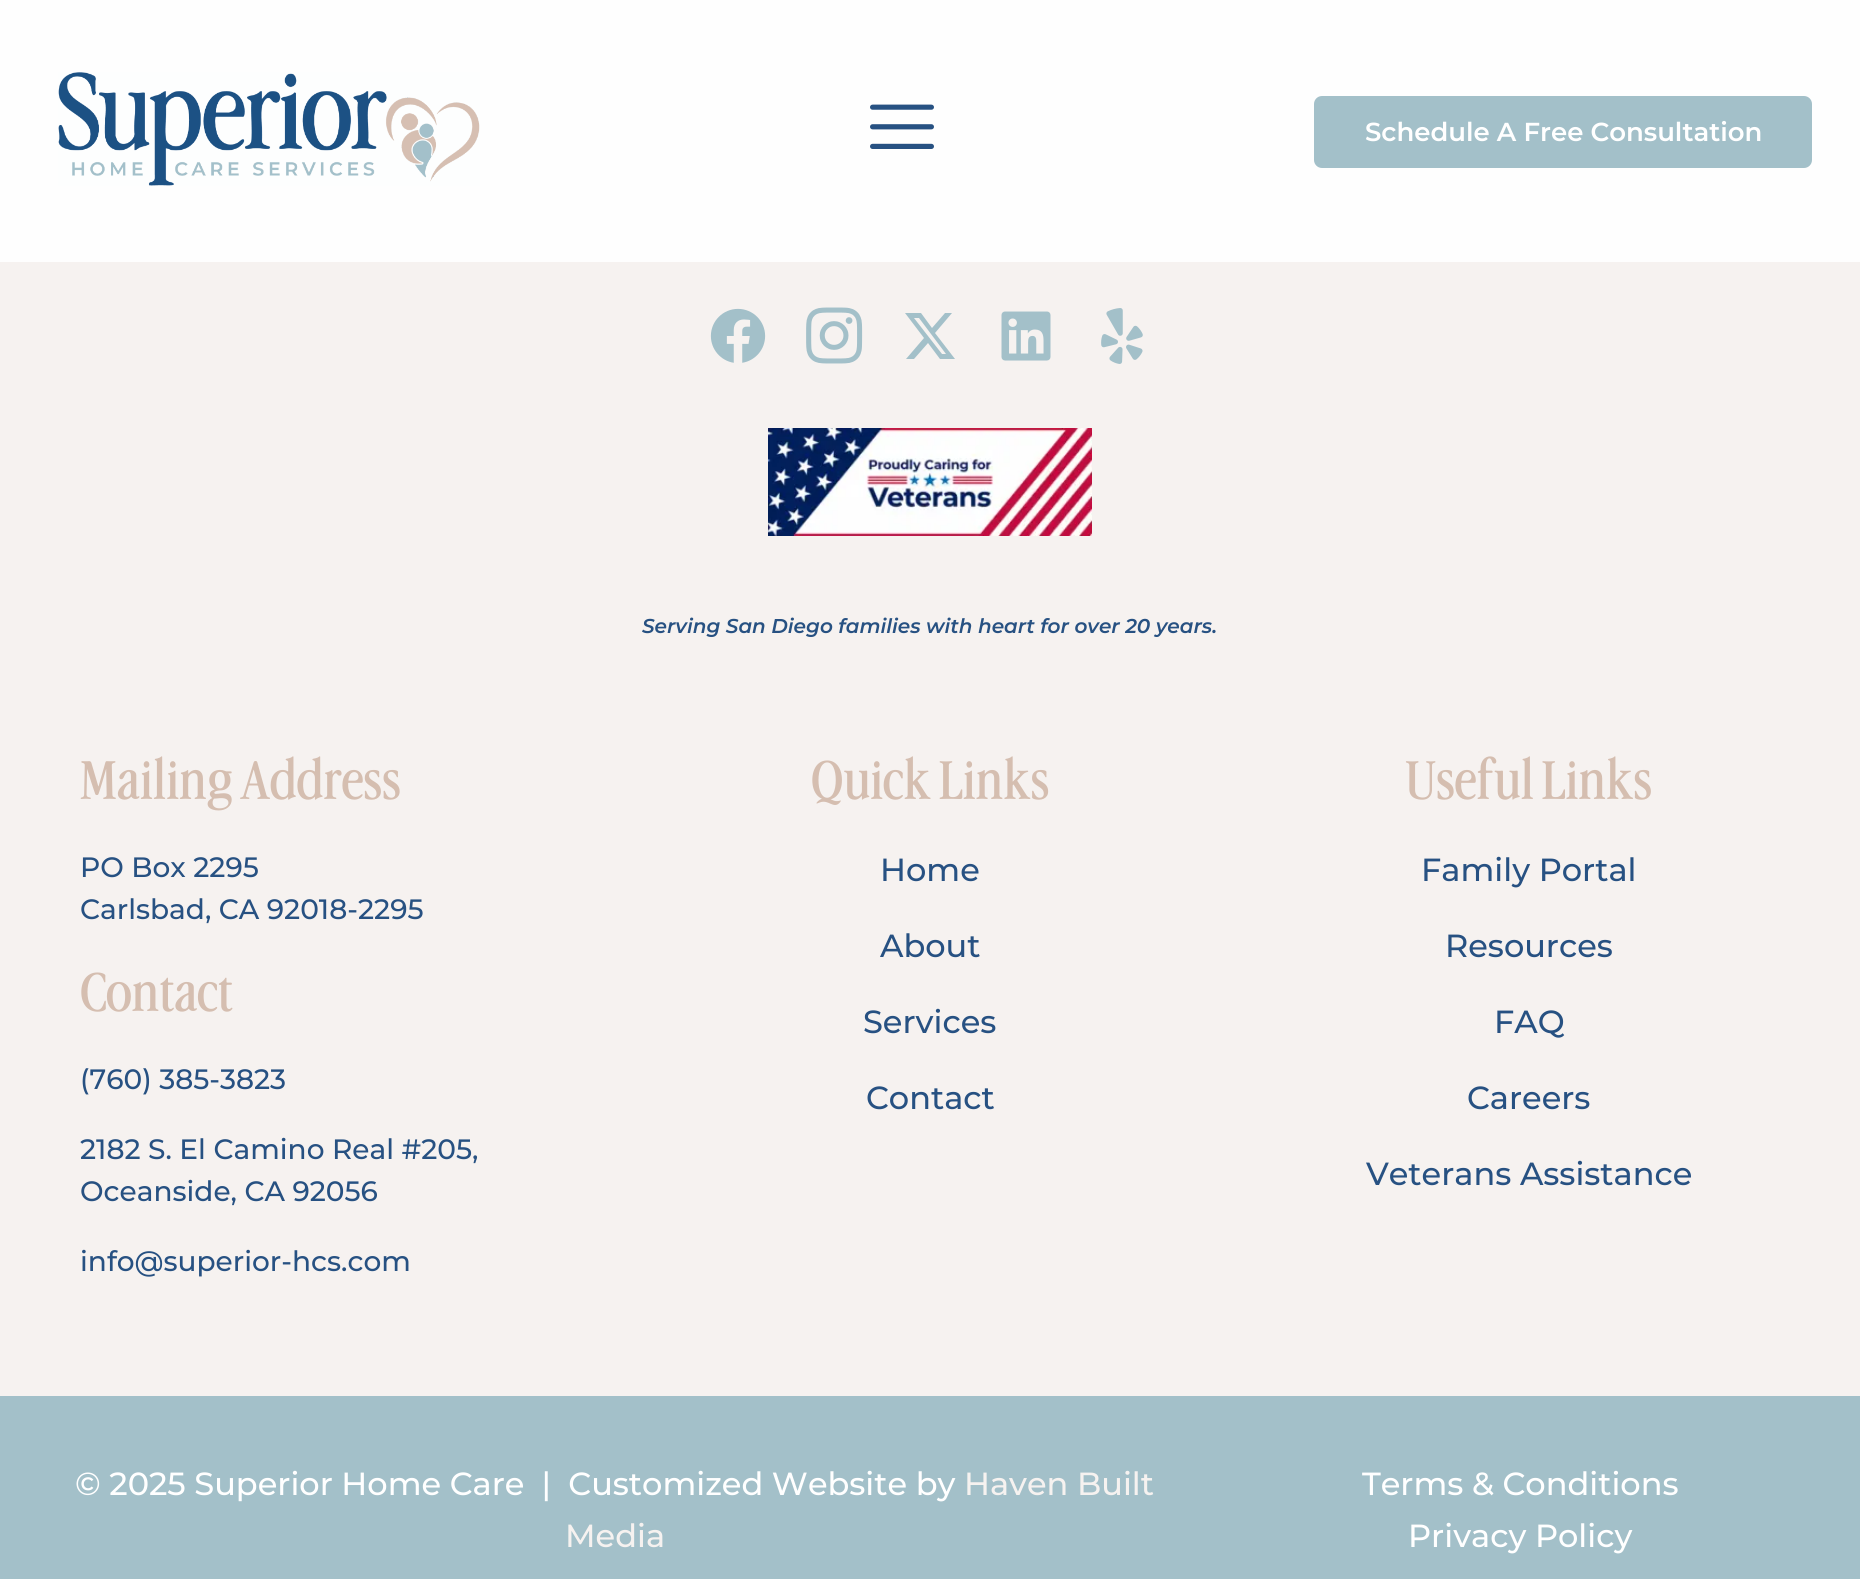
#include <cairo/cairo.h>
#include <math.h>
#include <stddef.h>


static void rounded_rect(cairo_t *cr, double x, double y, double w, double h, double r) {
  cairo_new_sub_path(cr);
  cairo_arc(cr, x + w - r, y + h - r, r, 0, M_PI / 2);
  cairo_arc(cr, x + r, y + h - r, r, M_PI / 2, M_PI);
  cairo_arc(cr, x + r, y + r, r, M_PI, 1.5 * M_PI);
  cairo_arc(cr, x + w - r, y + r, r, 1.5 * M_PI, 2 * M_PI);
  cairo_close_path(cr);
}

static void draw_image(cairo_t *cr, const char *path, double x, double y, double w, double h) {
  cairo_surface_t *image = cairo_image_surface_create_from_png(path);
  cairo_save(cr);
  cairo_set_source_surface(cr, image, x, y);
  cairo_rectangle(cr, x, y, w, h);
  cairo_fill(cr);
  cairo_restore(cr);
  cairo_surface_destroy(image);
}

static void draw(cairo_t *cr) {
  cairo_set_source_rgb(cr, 246 / 255.0, 242 / 255.0, 240 / 255.0);
  cairo_paint(cr);
  cairo_set_source_rgb(cr, 254 / 255.0, 254 / 255.0, 254 / 255.0);
  cairo_rectangle(cr, 0, 0, 1860, 262);
  cairo_fill(cr);
  draw_image(cr, "images/1.png", 58, 72, 422, 114);
  draw_image(cr, "images/2.png", 870, 104, 64, 45);
  cairo_set_source_rgb(cr, 163 / 255.0, 192 / 255.0, 201 / 255.0);
  rounded_rect(cr, 1314, 96, 498, 72, 8);
  cairo_fill(cr);
  draw_image(cr, "images/3.png", 710, 308, 56, 55);
  draw_image(cr, "images/4.png", 806, 307, 57, 57);
  cairo_new_path(cr);
  cairo_move_to(cr, 945, 313);
  cairo_line_to(cr, 952, 313);
  cairo_line_to(cr, 935, 333);
  cairo_line_to(cr, 955, 359);
  cairo_line_to(cr, 940, 359);
  cairo_line_to(cr, 928, 343);
  cairo_line_to(cr, 914, 359);
  cairo_line_to(cr, 906, 359);
  cairo_line_to(cr, 924, 338);
  cairo_line_to(cr, 905, 313);
  cairo_line_to(cr, 921, 313);
  cairo_line_to(cr, 932, 328);
  cairo_close_path(cr);
  cairo_move_to(cr, 942, 354);
  cairo_line_to(cr, 946, 354);
  cairo_line_to(cr, 919, 318);
  cairo_line_to(cr, 914, 318);
  cairo_close_path(cr);
  cairo_fill(cr);
  draw_image(cr, "images/5.png", 1001, 311, 50, 50);
  draw_image(cr, "images/6.png", 1101, 308, 42, 56);
  draw_image(cr, "images/7.png", 768, 428, 324, 108);
  cairo_rectangle(cr, 0, 1396, 1860, 183);
  cairo_fill(cr);
  cairo_select_font_face(cr, "Montserrat SemiBold", CAIRO_FONT_SLANT_NORMAL, CAIRO_FONT_WEIGHT_NORMAL);
  cairo_set_font_size(cr, 26);
  cairo_set_source_rgb(cr, 1, 1, 1);
  cairo_move_to(cr, 1365, 141);
  cairo_show_text(cr, "Schedule A Free Consultation");
  cairo_select_font_face(cr, "Montserrat SemiBold", CAIRO_FONT_SLANT_ITALIC, CAIRO_FONT_WEIGHT_NORMAL);
  cairo_set_font_size(cr, 20);
  cairo_set_source_rgb(cr, 39 / 255.0, 81 / 255.0, 130 / 255.0);
  cairo_move_to(cr, 642, 633);
  cairo_show_text(cr, "Serving San Diego families with heart for over 20 years.");
  cairo_select_font_face(cr, "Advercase", CAIRO_FONT_SLANT_NORMAL, CAIRO_FONT_WEIGHT_NORMAL);
  cairo_set_font_size(cr, 44);
  cairo_set_source_rgb(cr, 213 / 255.0, 190 / 255.0, 176 / 255.0);
  cairo_move_to(cr, 80, 799);
  cairo_show_text(cr, "Mailing Address");
  cairo_select_font_face(cr, "Montserrat Medium", CAIRO_FONT_SLANT_NORMAL, CAIRO_FONT_WEIGHT_NORMAL);
  cairo_set_font_size(cr, 28);
  cairo_set_source_rgb(cr, 39 / 255.0, 81 / 255.0, 130 / 255.0);
  cairo_move_to(cr, 80, 877);
  cairo_show_text(cr, "PO Box 2295");
  cairo_move_to(cr, 80, 919);
  cairo_show_text(cr, "Carlsbad, CA 92018-2295");
  cairo_select_font_face(cr, "Advercase", CAIRO_FONT_SLANT_NORMAL, CAIRO_FONT_WEIGHT_NORMAL);
  cairo_set_font_size(cr, 44);
  cairo_set_source_rgb(cr, 213 / 255.0, 190 / 255.0, 176 / 255.0);
  cairo_move_to(cr, 80, 1011);
  cairo_show_text(cr, "Contact");
  cairo_select_font_face(cr, "Montserrat Medium", CAIRO_FONT_SLANT_NORMAL, CAIRO_FONT_WEIGHT_NORMAL);
  cairo_set_font_size(cr, 28);
  cairo_set_source_rgb(cr, 39 / 255.0, 81 / 255.0, 130 / 255.0);
  cairo_move_to(cr, 80, 1089);
  cairo_show_text(cr, "(760) 385-3823");
  cairo_move_to(cr, 80, 1159);
  cairo_show_text(cr, "2182 S. El Camino Real #205,");
  cairo_move_to(cr, 80, 1201);
  cairo_show_text(cr, "Oceanside, CA 92056");
  cairo_move_to(cr, 80, 1271);
  cairo_show_text(cr, "info@superior-hcs.com");
  cairo_select_font_face(cr, "Advercase", CAIRO_FONT_SLANT_NORMAL, CAIRO_FONT_WEIGHT_NORMAL);
  cairo_set_font_size(cr, 44);
  cairo_set_source_rgb(cr, 213 / 255.0, 190 / 255.0, 176 / 255.0);
  cairo_move_to(cr, 811, 799);
  cairo_show_text(cr, "Quick Links");
  cairo_select_font_face(cr, "Montserrat Medium", CAIRO_FONT_SLANT_NORMAL, CAIRO_FONT_WEIGHT_NORMAL);
  cairo_set_font_size(cr, 32);
  cairo_set_source_rgb(cr, 39 / 255.0, 81 / 255.0, 130 / 255.0);
  cairo_move_to(cr, 880, 881);
  cairo_show_text(cr, "Home");
  cairo_move_to(cr, 880, 957);
  cairo_show_text(cr, "About");
  cairo_move_to(cr, 863, 1033);
  cairo_show_text(cr, "Services");
  cairo_move_to(cr, 866, 1109);
  cairo_show_text(cr, "Contact");
  cairo_select_font_face(cr, "Advercase", CAIRO_FONT_SLANT_NORMAL, CAIRO_FONT_WEIGHT_NORMAL);
  cairo_set_font_size(cr, 44);
  cairo_set_source_rgb(cr, 213 / 255.0, 190 / 255.0, 176 / 255.0);
  cairo_move_to(cr, 1405, 799);
  cairo_show_text(cr, "Useful Links");
  cairo_select_font_face(cr, "Montserrat Medium", CAIRO_FONT_SLANT_NORMAL, CAIRO_FONT_WEIGHT_NORMAL);
  cairo_set_font_size(cr, 32);
  cairo_set_source_rgb(cr, 39 / 255.0, 81 / 255.0, 130 / 255.0);
  cairo_move_to(cr, 1421, 881);
  cairo_show_text(cr, "Family Portal");
  cairo_move_to(cr, 1445, 957);
  cairo_show_text(cr, "Resources");
  cairo_move_to(cr, 1494, 1033);
  cairo_show_text(cr, "FAQ");
  cairo_move_to(cr, 1467, 1109);
  cairo_show_text(cr, "Careers");
  cairo_move_to(cr, 1366, 1185);
  cairo_show_text(cr, "Veterans Assistance");
  cairo_set_source_rgb(cr, 1, 1, 1);
  cairo_move_to(cr, 75, 1495);
  cairo_show_text(cr, "© 2025 Superior Home Care  |  Customized Website by");
  cairo_set_source_rgb(cr, 246 / 255.0, 242 / 255.0, 240 / 255.0);
  cairo_move_to(cr, 964, 1495);
  cairo_show_text(cr, "Haven Built");
  cairo_move_to(cr, 565, 1547);
  cairo_show_text(cr, "Media");
  cairo_set_source_rgb(cr, 1, 1, 1);
  cairo_move_to(cr, 1362, 1495);
  cairo_show_text(cr, "Terms & Conditions");
  cairo_move_to(cr, 1408, 1547);
  cairo_show_text(cr, "Privacy Policy");
}

int main(void) {
  cairo_surface_t *surface = cairo_image_surface_create(CAIRO_FORMAT_RGB24, 1860, 1579);
  cairo_t *cr = cairo_create(surface);
  cairo_font_options_t *options = cairo_font_options_create();
  cairo_font_options_set_hint_metrics(options, CAIRO_HINT_METRICS_OFF);
  cairo_font_options_set_hint_style(options, CAIRO_HINT_STYLE_NONE);
  cairo_set_font_options(cr, options);
  cairo_set_miter_limit(cr, 4);
  draw(cr);
  cairo_surface_write_to_png(surface, "out.png");
  cairo_font_options_destroy(options);
  cairo_destroy(cr);
  cairo_surface_destroy(surface);
  return 0;
}
